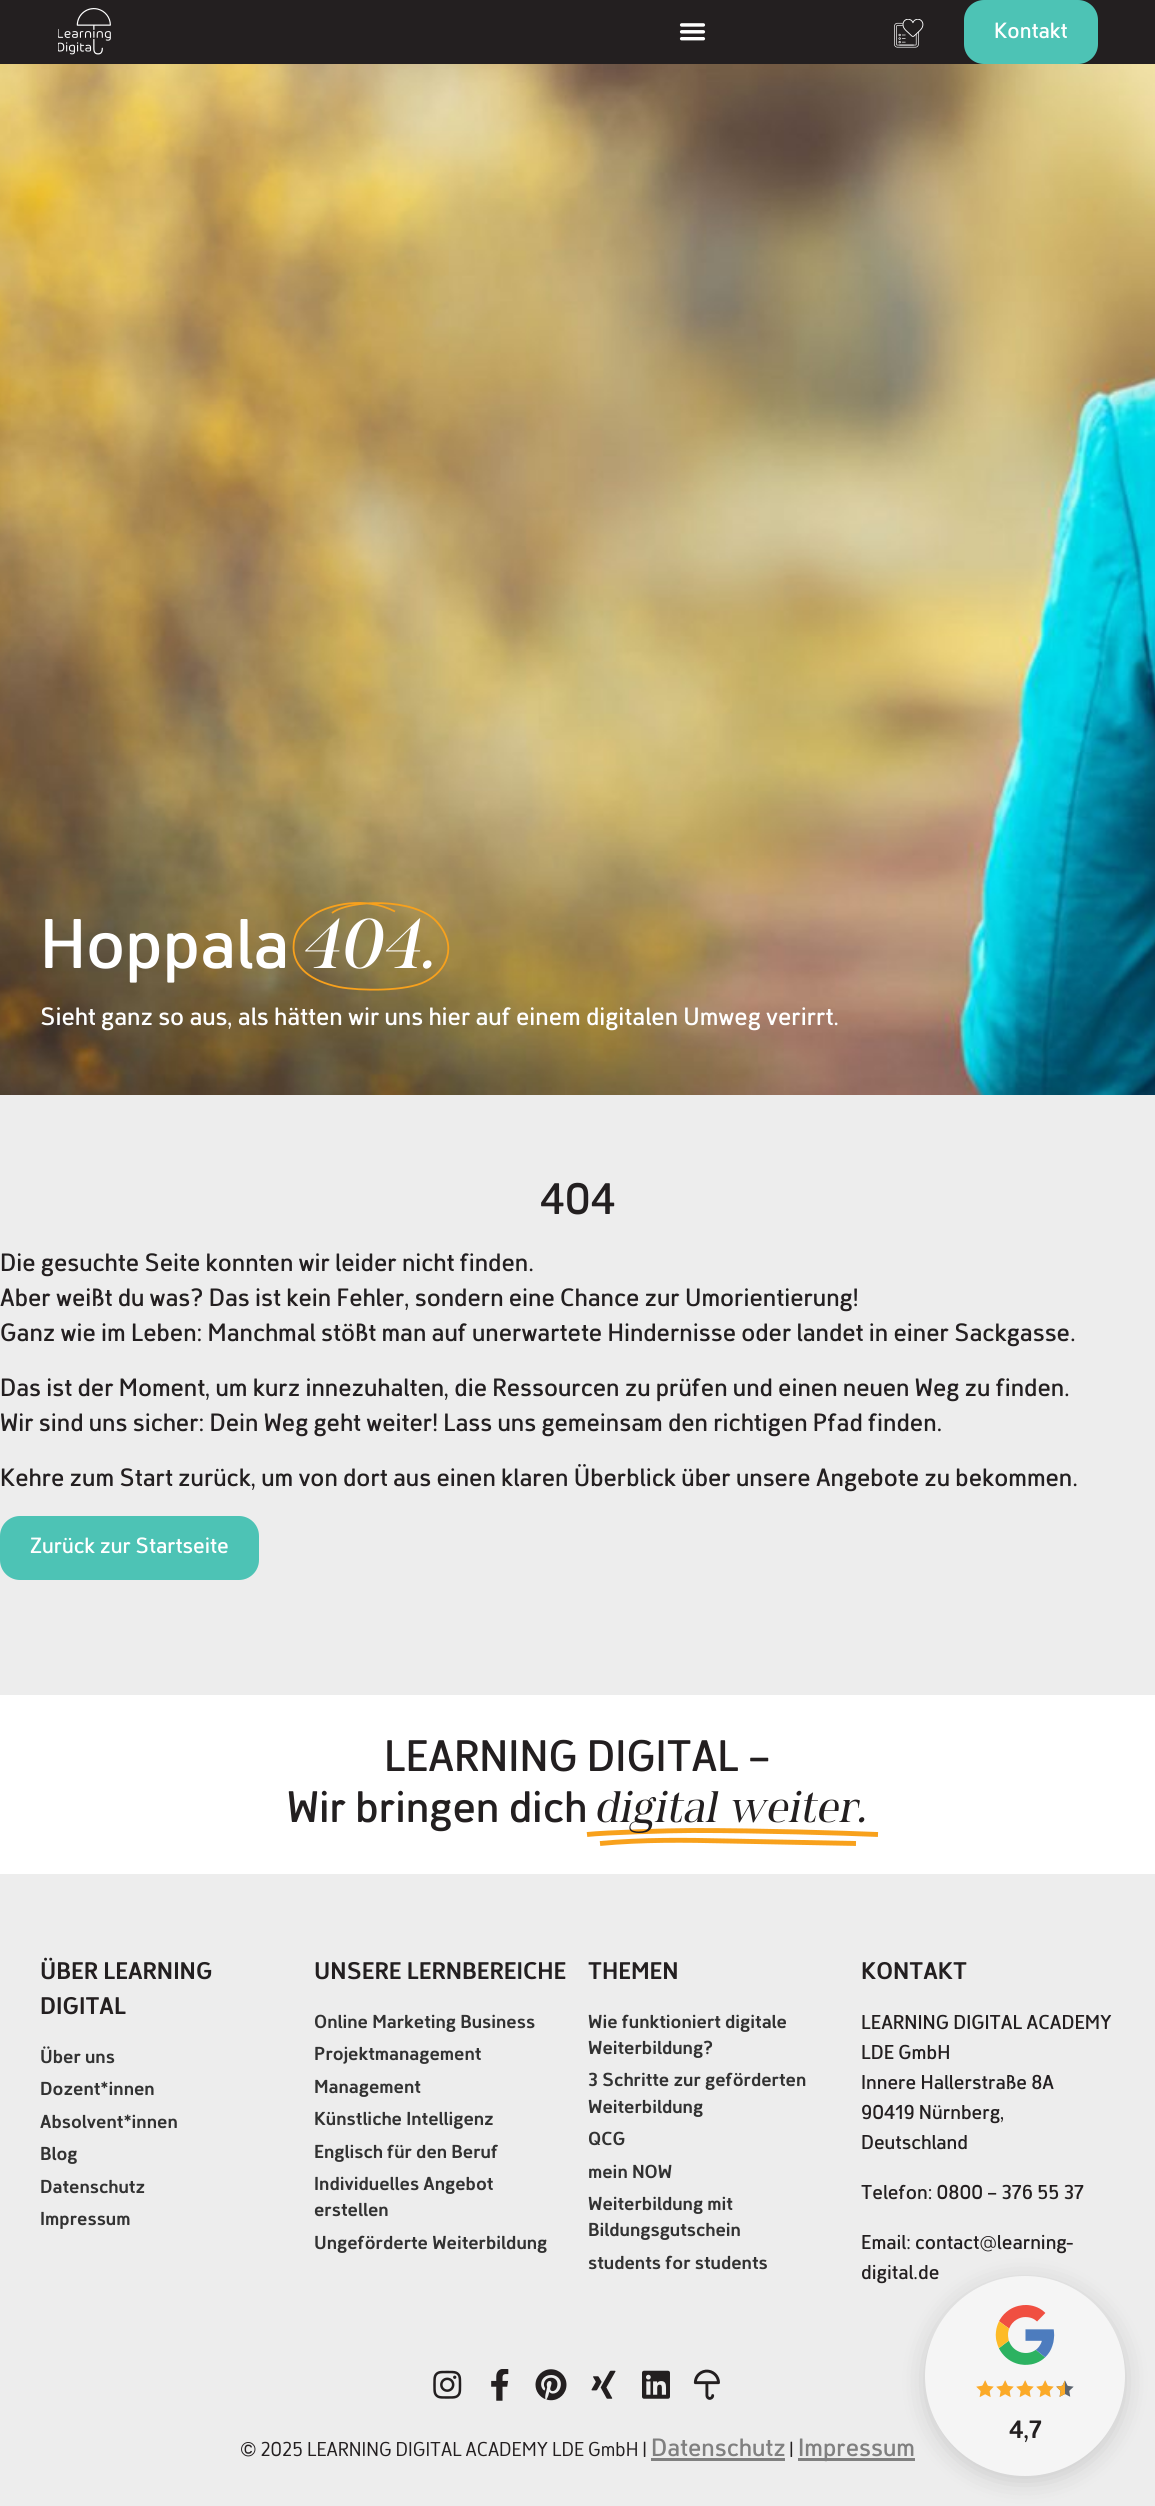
#include <cairo/cairo.h>
#include <math.h>
#include <stddef.h>


static void rounded_rect(cairo_t *cr, double x, double y, double w, double h, double r) {
  cairo_new_sub_path(cr);
  cairo_arc(cr, x + w - r, y + h - r, r, 0, M_PI / 2);
  cairo_arc(cr, x + r, y + h - r, r, M_PI / 2, M_PI);
  cairo_arc(cr, x + r, y + r, r, M_PI, 1.5 * M_PI);
  cairo_arc(cr, x + w - r, y + r, r, 1.5 * M_PI, 2 * M_PI);
  cairo_close_path(cr);
}

static void draw_shadow(cairo_t *cr, double x, double y, double w, double h, double r, double blur, double alpha) {
  cairo_push_group_with_content(cr, CAIRO_CONTENT_ALPHA);
  cairo_set_operator(cr, CAIRO_OPERATOR_SOURCE);
  for (int i = 15; i >= -15 && fmin(w, h) + blur * i / 3 > 0; i -= 2) {
    double e = blur * i / 6;
    cairo_set_source_rgba(cr, 0, 0, 0, alpha * erfc((i - 1) / 8.5) / 2);
    rounded_rect(cr, x - e, y - e, w + 2 * e, h + 2 * e, fmax(0, fmin(r + e + blur * .6, fmin(w, h) / 2 + e)));
    cairo_fill(cr);
  }
  cairo_pattern_t *soft = cairo_pop_group(cr);
  cairo_mask(cr, soft);
  cairo_pattern_destroy(soft);
}

static void draw_image(cairo_t *cr, const char *path, double x, double y, double w, double h) {
  cairo_surface_t *image = cairo_image_surface_create_from_png(path);
  cairo_save(cr);
  cairo_set_source_surface(cr, image, x, y);
  cairo_rectangle(cr, x, y, w, h);
  cairo_fill(cr);
  cairo_restore(cr);
  cairo_surface_destroy(image);
}

static void draw(cairo_t *cr) {
  cairo_set_source_rgb(cr, 1, 1, 1);
  cairo_paint(cr);
  cairo_set_source_rgb(cr, 35 / 255.0, 31 / 255.0, 32 / 255.0);
  cairo_rectangle(cr, 0, 0, 1155, 64);
  cairo_fill(cr);
  draw_image(cr, "images/1.png", 58, 8, 53, 47);
  draw_image(cr, "images/2.png", 679, 23, 27, 18);
  draw_image(cr, "images/3.png", 894, 19, 30, 29);
  cairo_set_source_rgb(cr, 77 / 255.0, 195 / 255.0, 181 / 255.0);
  rounded_rect(cr, 964, 0, 134, 64, 20);
  cairo_fill(cr);
  draw_image(cr, "images/4.png", 0, 64, 1155, 1031);
  cairo_new_path(cr);
  cairo_move_to(cr, 395, 911.5);
  cairo_curve_to(cr, 364.5, 895.5, 329.5, 905.5, 316.5, 913);
  cairo_curve_to(cr, 299, 924, 293.5, 934, 293.5, 948);
  cairo_curve_to(cr, 294, 967.5, 310.5, 981, 339, 987);
  cairo_curve_to(cr, 360, 991, 406.5, 991.5, 425.5, 981.5);
  cairo_curve_to(cr, 446, 971.5, 459, 946.5, 436.5, 921.5);
  cairo_curve_to(cr, 414.5, 897.5, 349, 899.5, 332, 913);
  cairo_set_source_rgb(cr, 248 / 255.0, 161 / 255.0, 28 / 255.0);
  cairo_set_line_width(cr, 1.8);
  cairo_stroke(cr);
  cairo_set_source_rgb(cr, 237 / 255.0, 237 / 255.0, 237 / 255.0);
  cairo_rectangle(cr, 0, 1095, 1155, 600);
  cairo_fill(cr);
  cairo_set_source_rgb(cr, 77 / 255.0, 195 / 255.0, 181 / 255.0);
  rounded_rect(cr, 0, 1516, 259, 64, 20);
  cairo_fill(cr);
  cairo_new_path(cr);
  cairo_move_to(cr, 587, 1834.5);
  cairo_curve_to(cr, 605, 1832.5, 669, 1830.5, 692.5, 1830.5);
  cairo_curve_to(cr, 762, 1830.5, 842, 1833, 878, 1834.5);
  cairo_set_source_rgb(cr, 248 / 255.0, 161 / 255.0, 28 / 255.0);
  cairo_set_line_width(cr, 4.9);
  cairo_stroke(cr);
  cairo_new_path(cr);
  cairo_move_to(cr, 600, 1843.5);
  cairo_curve_to(cr, 642.5, 1839.5, 685, 1840, 727.5, 1841);
  cairo_line_to(cr, 856, 1843.5);
  cairo_stroke(cr);
  cairo_set_source_rgb(cr, 237 / 255.0, 237 / 255.0, 237 / 255.0);
  cairo_rectangle(cr, 0, 1874, 1155, 632);
  cairo_fill(cr);
  draw_image(cr, "images/5.png", 433, 2370, 29, 29);
  draw_image(cr, "images/6.png", 491, 2369, 18, 32);
  draw_image(cr, "images/7.png", 535, 2369, 32, 32);
  draw_image(cr, "images/8.png", 591, 2370, 25, 29);
  draw_image(cr, "images/9.png", 642, 2370, 28, 29);
  draw_image(cr, "images/10.png", 693, 2369, 27, 31);
  cairo_set_source_rgb(cr, 128 / 255.0, 128 / 255.0, 128 / 255.0);
  cairo_rectangle(cr, 651, 2458, 134, 3);
  cairo_fill(cr);
  cairo_rectangle(cr, 798, 2458, 117, 3);
  cairo_fill(cr);
  cairo_set_source_rgb(cr, 0, 0, 0);
  draw_shadow(cr, 925, 2281, 200, 200, 100, 12.5, 0.15);
  cairo_select_font_face(cr, "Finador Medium", CAIRO_FONT_SLANT_NORMAL, CAIRO_FONT_WEIGHT_NORMAL);
  cairo_set_font_size(cr, 22);
  cairo_set_source_rgb(cr, 1, 1, 1);
  cairo_move_to(cr, 994, 38);
  cairo_show_text(cr, "Kontakt");
  cairo_set_font_size(cr, 70);
  cairo_move_to(cr, 40, 968);
  cairo_show_text(cr, "Hoppala");
  cairo_select_font_face(cr, "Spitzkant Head", CAIRO_FONT_SLANT_NORMAL, CAIRO_FONT_WEIGHT_NORMAL);
  cairo_move_to(cr, 304, 968);
  cairo_show_text(cr, "404.");
  cairo_select_font_face(cr, "Finador Medium", CAIRO_FONT_SLANT_NORMAL, CAIRO_FONT_WEIGHT_NORMAL);
  cairo_set_font_size(cr, 25);
  cairo_move_to(cr, 40, 1025);
  cairo_show_text(cr, "Sieht ganz so aus, als hätten wir uns hier auf einem digitalen Umweg verirrt.");
  cairo_set_font_size(cr, 44);
  cairo_set_source_rgb(cr, 35 / 255.0, 31 / 255.0, 32 / 255.0);
  cairo_move_to(cr, 540, 1214);
  cairo_show_text(cr, "404");
  cairo_set_font_size(cr, 25);
  cairo_move_to(cr, 0, 1271);
  cairo_show_text(cr, "Die gesuchte Seite konnten wir leider nicht finden.");
  cairo_move_to(cr, 0, 1306);
  cairo_show_text(cr, "Aber weißt du was? Das ist kein Fehler, sondern eine Chance zur Umorientierung!");
  cairo_move_to(cr, 0, 1341);
  cairo_show_text(cr, "Ganz wie im Leben: Manchmal stößt man auf unerwartete Hindernisse oder landet in einer Sackgasse.");
  cairo_move_to(cr, 0, 1396);
  cairo_show_text(cr, "Das ist der Moment, um kurz innezuhalten, die Ressourcen zu prüfen und einen neuen Weg zu finden.");
  cairo_move_to(cr, 0, 1431);
  cairo_show_text(cr, "Wir sind uns sicher: Dein Weg geht weiter! Lass uns gemeinsam den richtigen Pfad finden.");
  cairo_move_to(cr, 0, 1486);
  cairo_show_text(cr, "Kehre zum Start zurück, um von dort aus einen klaren Überblick über unsere Angebote zu bekommen.");
  cairo_set_font_size(cr, 22);
  cairo_set_source_rgb(cr, 1, 1, 1);
  cairo_move_to(cr, 30, 1553);
  cairo_show_text(cr, "Zurück zur Startseite");
  cairo_set_font_size(cr, 44);
  cairo_set_source_rgb(cr, 35 / 255.0, 31 / 255.0, 32 / 255.0);
  cairo_move_to(cr, 384, 1771);
  cairo_show_text(cr, "LEARNING DIGITAL –");
  cairo_move_to(cr, 287, 1822);
  cairo_show_text(cr, "Wir bringen dich");
  cairo_select_font_face(cr, "Spitzkant Head", CAIRO_FONT_SLANT_NORMAL, CAIRO_FONT_WEIGHT_NORMAL);
  cairo_move_to(cr, 596, 1822);
  cairo_show_text(cr, "digital weiter.");
  cairo_select_font_face(cr, "Finador", CAIRO_FONT_SLANT_NORMAL, CAIRO_FONT_WEIGHT_BOLD);
  cairo_set_font_size(cr, 24);
  cairo_move_to(cr, 40, 1979);
  cairo_show_text(cr, "ÜBER LEARNING");
  cairo_move_to(cr, 40, 2014);
  cairo_show_text(cr, "DIGITAL");
  cairo_set_font_size(cr, 18.75);
  cairo_set_source_rgb(cr, 50 / 255.0, 50 / 255.0, 50 / 255.0);
  cairo_move_to(cr, 40, 2063);
  cairo_show_text(cr, "Über uns");
  cairo_move_to(cr, 40, 2095);
  cairo_show_text(cr, "Dozent*innen");
  cairo_move_to(cr, 40, 2128);
  cairo_show_text(cr, "Absolvent*innen");
  cairo_move_to(cr, 40, 2160);
  cairo_show_text(cr, "Blog");
  cairo_move_to(cr, 40, 2193);
  cairo_show_text(cr, "Datenschutz");
  cairo_move_to(cr, 40, 2225);
  cairo_show_text(cr, "Impressum");
  cairo_set_font_size(cr, 24);
  cairo_set_source_rgb(cr, 35 / 255.0, 31 / 255.0, 32 / 255.0);
  cairo_move_to(cr, 314, 1979);
  cairo_show_text(cr, "UNSERE LERNBEREICHE");
  cairo_set_font_size(cr, 18.75);
  cairo_set_source_rgb(cr, 50 / 255.0, 50 / 255.0, 50 / 255.0);
  cairo_move_to(cr, 314, 2028);
  cairo_show_text(cr, "Online Marketing Business");
  cairo_move_to(cr, 314, 2060);
  cairo_show_text(cr, "Projektmanagement");
  cairo_move_to(cr, 314, 2093);
  cairo_show_text(cr, "Management");
  cairo_move_to(cr, 314, 2125);
  cairo_show_text(cr, "Künstliche Intelligenz");
  cairo_move_to(cr, 314, 2158);
  cairo_show_text(cr, "Englisch für den Beruf");
  cairo_move_to(cr, 314, 2190);
  cairo_show_text(cr, "Individuelles Angebot");
  cairo_move_to(cr, 314, 2216);
  cairo_show_text(cr, "erstellen");
  cairo_move_to(cr, 314, 2249);
  cairo_show_text(cr, "Ungeförderte Weiterbildung");
  cairo_set_font_size(cr, 24);
  cairo_set_source_rgb(cr, 35 / 255.0, 31 / 255.0, 32 / 255.0);
  cairo_move_to(cr, 588, 1979);
  cairo_show_text(cr, "THEMEN");
  cairo_set_font_size(cr, 18.75);
  cairo_set_source_rgb(cr, 50 / 255.0, 50 / 255.0, 50 / 255.0);
  cairo_move_to(cr, 588, 2028);
  cairo_show_text(cr, "Wie funktioniert digitale");
  cairo_move_to(cr, 588, 2054);
  cairo_show_text(cr, "Weiterbildung?");
  cairo_move_to(cr, 588, 2086);
  cairo_show_text(cr, "3 Schritte zur geförderten");
  cairo_move_to(cr, 588, 2113);
  cairo_show_text(cr, "Weiterbildung");
  cairo_move_to(cr, 588, 2145);
  cairo_show_text(cr, "QCG");
  cairo_move_to(cr, 588, 2178);
  cairo_show_text(cr, "mein NOW");
  cairo_move_to(cr, 588, 2210);
  cairo_show_text(cr, "Weiterbildung mit");
  cairo_move_to(cr, 588, 2236);
  cairo_show_text(cr, "Bildungsgutschein");
  cairo_move_to(cr, 588, 2269);
  cairo_show_text(cr, "students for students");
  cairo_set_font_size(cr, 24);
  cairo_set_source_rgb(cr, 35 / 255.0, 31 / 255.0, 32 / 255.0);
  cairo_move_to(cr, 861, 1979);
  cairo_show_text(cr, "KONTAKT");
  cairo_select_font_face(cr, "Finador Medium", CAIRO_FONT_SLANT_NORMAL, CAIRO_FONT_WEIGHT_NORMAL);
  cairo_set_font_size(cr, 20);
  cairo_move_to(cr, 861, 2029);
  cairo_show_text(cr, "LEARNING DIGITAL ACADEMY");
  cairo_move_to(cr, 861, 2059);
  cairo_show_text(cr, "LDE GmbH");
  cairo_move_to(cr, 861, 2089);
  cairo_show_text(cr, "Innere Hallerstraße 8A");
  cairo_move_to(cr, 861, 2119);
  cairo_show_text(cr, "90419 Nürnberg,");
  cairo_move_to(cr, 861, 2149);
  cairo_show_text(cr, "Deutschland");
  cairo_move_to(cr, 861, 2199);
  cairo_show_text(cr, "Telefon: 0800 – 376 55 37");
  cairo_move_to(cr, 861, 2249);
  cairo_show_text(cr, "Email: contact@learning-");
  cairo_move_to(cr, 861, 2279);
  cairo_show_text(cr, "digital.de");
  cairo_select_font_face(cr, "Finador", CAIRO_FONT_SLANT_NORMAL, CAIRO_FONT_WEIGHT_NORMAL);
  cairo_move_to(cr, 240, 2456);
  cairo_show_text(cr, "© 2025 LEARNING DIGITAL ACADEMY LDE GmbH |");
  cairo_select_font_face(cr, "Finador Medium", CAIRO_FONT_SLANT_NORMAL, CAIRO_FONT_WEIGHT_NORMAL);
  cairo_set_font_size(cr, 25);
  cairo_set_source_rgb(cr, 128 / 255.0, 128 / 255.0, 128 / 255.0);
  cairo_move_to(cr, 651, 2456);
  cairo_show_text(cr, "Datenschutz");
  cairo_select_font_face(cr, "Finador", CAIRO_FONT_SLANT_NORMAL, CAIRO_FONT_WEIGHT_NORMAL);
  cairo_set_font_size(cr, 20);
  cairo_set_source_rgb(cr, 35 / 255.0, 31 / 255.0, 32 / 255.0);
  cairo_move_to(cr, 789, 2456);
  cairo_show_text(cr, "|");
  cairo_select_font_face(cr, "Finador Medium", CAIRO_FONT_SLANT_NORMAL, CAIRO_FONT_WEIGHT_NORMAL);
  cairo_set_font_size(cr, 25);
  cairo_set_source_rgb(cr, 128 / 255.0, 128 / 255.0, 128 / 255.0);
  cairo_move_to(cr, 798, 2456);
  cairo_show_text(cr, "Impressum");
  cairo_set_source_rgb(cr, 245 / 255.0, 245 / 255.0, 245 / 255.0);
  cairo_new_path(cr);
  cairo_arc(cr, 1025, 2376, 100, 0, 2 * M_PI);
  cairo_fill(cr);
  draw_image(cr, "images/11.png", 995, 2305, 60, 60);
  draw_image(cr, "images/12.png", 976, 2380, 18, 18);
  draw_image(cr, "images/12.png", 996, 2380, 18, 18);
  draw_image(cr, "images/12.png", 1016, 2380, 18, 18);
  draw_image(cr, "images/12.png", 1036, 2380, 18, 18);
  draw_image(cr, "images/13.png", 1056, 2380, 18, 17);
  cairo_select_font_face(cr, "Finador", CAIRO_FONT_SLANT_NORMAL, CAIRO_FONT_WEIGHT_BOLD);
  cairo_set_source_rgb(cr, 35 / 255.0, 31 / 255.0, 32 / 255.0);
  cairo_move_to(cr, 1009, 2438);
  cairo_show_text(cr, "4,7");
}

int main(void) {
  cairo_surface_t *surface = cairo_image_surface_create(CAIRO_FORMAT_RGB24, 1155, 2506);
  cairo_t *cr = cairo_create(surface);
  cairo_font_options_t *options = cairo_font_options_create();
  cairo_font_options_set_hint_metrics(options, CAIRO_HINT_METRICS_OFF);
  cairo_font_options_set_hint_style(options, CAIRO_HINT_STYLE_NONE);
  cairo_set_font_options(cr, options);
  cairo_set_miter_limit(cr, 4);
  draw(cr);
  cairo_surface_write_to_png(surface, "out.png");
  cairo_font_options_destroy(options);
  cairo_destroy(cr);
  cairo_surface_destroy(surface);
  return 0;
}
